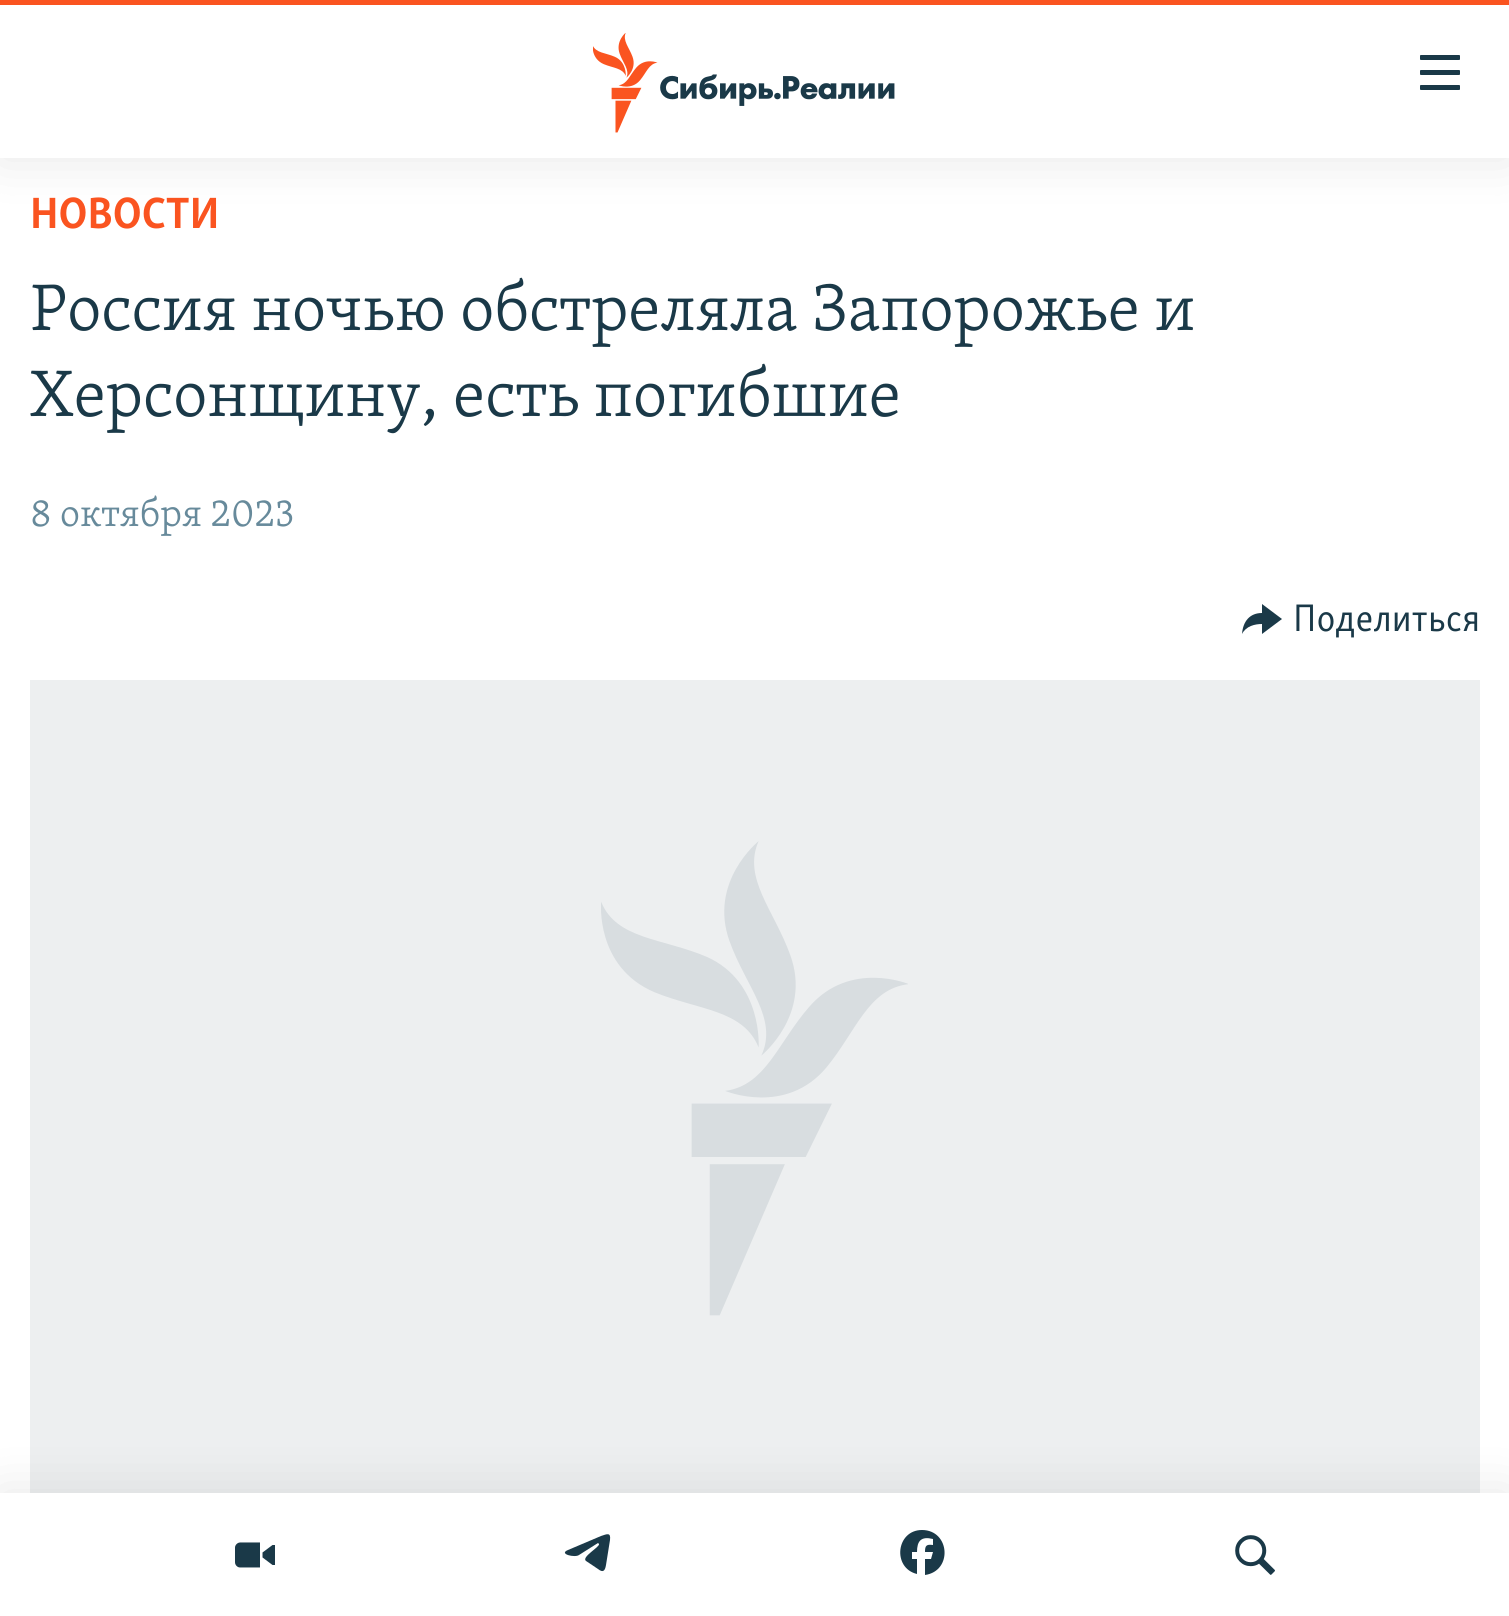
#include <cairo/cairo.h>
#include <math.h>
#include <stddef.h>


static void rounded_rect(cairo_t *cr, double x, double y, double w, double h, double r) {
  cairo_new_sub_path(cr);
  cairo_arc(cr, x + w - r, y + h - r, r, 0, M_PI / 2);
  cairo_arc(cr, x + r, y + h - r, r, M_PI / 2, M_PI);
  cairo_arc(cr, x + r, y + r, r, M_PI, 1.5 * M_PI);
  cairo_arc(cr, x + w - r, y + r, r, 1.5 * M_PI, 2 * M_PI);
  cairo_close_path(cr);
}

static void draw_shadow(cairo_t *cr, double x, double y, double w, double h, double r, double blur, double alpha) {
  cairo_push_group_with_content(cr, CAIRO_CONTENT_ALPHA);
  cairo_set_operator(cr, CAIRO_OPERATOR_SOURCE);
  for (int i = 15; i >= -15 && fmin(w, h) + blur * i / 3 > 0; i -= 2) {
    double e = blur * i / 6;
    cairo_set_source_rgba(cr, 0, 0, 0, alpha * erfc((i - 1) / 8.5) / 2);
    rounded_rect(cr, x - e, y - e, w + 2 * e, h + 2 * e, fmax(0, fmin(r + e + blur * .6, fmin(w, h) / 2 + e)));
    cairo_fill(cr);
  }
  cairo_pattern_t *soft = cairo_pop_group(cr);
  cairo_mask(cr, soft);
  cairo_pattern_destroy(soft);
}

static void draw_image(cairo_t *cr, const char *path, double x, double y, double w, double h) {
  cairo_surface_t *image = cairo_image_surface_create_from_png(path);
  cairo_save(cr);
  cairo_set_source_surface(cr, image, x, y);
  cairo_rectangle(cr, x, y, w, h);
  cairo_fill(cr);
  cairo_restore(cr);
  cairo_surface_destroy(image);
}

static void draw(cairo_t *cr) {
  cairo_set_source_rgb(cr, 1, 1, 1);
  cairo_paint(cr);
  cairo_set_source_rgb(cr, 0, 0, 0);
  draw_shadow(cr, 0, 0, 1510, 158, 0, 25, 0.1);
  cairo_set_source_rgb(cr, 1, 1, 1);
  cairo_rectangle(cr, 0, 5, 1509, 153);
  cairo_fill(cr);
  cairo_set_source_rgb(cr, 250 / 255.0, 84 / 255.0, 32 / 255.0);
  cairo_rectangle(cr, 0, 0, 1509, 5);
  cairo_fill(cr);
  draw_image(cr, "images/1.png", 593, 33, 302, 100);
  draw_image(cr, "images/2.png", 1420, 55, 40, 35);
  cairo_set_source_rgb(cr, 237 / 255.0, 239 / 255.0, 240 / 255.0);
  cairo_rectangle(cr, 30, 680, 1450, 813);
  cairo_fill(cr);
  cairo_set_source_rgb(cr, 0, 0, 0);
  draw_shadow(cr, 0, 1493, 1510, 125, 0, 25, 0.1);
  cairo_set_source_rgb(cr, 1, 1, 1);
  cairo_rectangle(cr, 0, 1493, 1509, 123);
  cairo_fill(cr);
  draw_image(cr, "images/3.png", 235, 1542, 40, 26);
  cairo_set_source_rgb(cr, 26 / 255.0, 57 / 255.0, 72 / 255.0);
  cairo_new_path(cr);
  cairo_move_to(cr, 568, 1550);
  cairo_line_to(cr, 601, 1536);
  cairo_curve_to(cr, 607, 1534, 611, 1532, 610, 1540);
  cairo_line_to(cr, 606, 1565);
  cairo_curve_to(cr, 605, 1571, 603, 1573, 598, 1569);
  cairo_line_to(cr, 586, 1561);
  cairo_curve_to(cr, 581, 1557, 600, 1547, 599, 1544);
  cairo_line_to(cr, 598, 1543);
  cairo_line_to(cr, 579, 1555);
  cairo_curve_to(cr, 575, 1558, 558, 1554, 568, 1550);
  cairo_close_path(cr);
  cairo_fill(cr);
  cairo_new_path(cr);
  cairo_move_to(cr, 922, 1530);
  cairo_curve_to(cr, 896, 1530, 892, 1568, 917, 1574);
  cairo_line_to(cr, 917, 1559);
  cairo_line_to(cr, 912, 1559);
  cairo_line_to(cr, 912, 1552);
  cairo_line_to(cr, 917, 1552);
  cairo_curve_to(cr, 917, 1541, 921, 1536, 933, 1539);
  cairo_line_to(cr, 933, 1545);
  cairo_curve_to(cr, 926, 1544, 925, 1546, 925, 1552);
  cairo_line_to(cr, 933, 1552);
  cairo_line_to(cr, 931, 1559);
  cairo_line_to(cr, 925, 1559);
  cairo_line_to(cr, 925, 1575);
  cairo_curve_to(cr, 953, 1571, 950, 1530, 922, 1530);
  cairo_close_path(cr);
  cairo_fill(cr);
  draw_image(cr, "images/4.png", 1235, 1535, 40, 40);
  cairo_new_path(cr);
  cairo_move_to(cr, 1242, 634);
  cairo_curve_to(cr, 1243, 621, 1250, 613, 1262, 613);
  cairo_line_to(cr, 1262, 604);
  cairo_line_to(cr, 1282, 619);
  cairo_line_to(cr, 1262, 634);
  cairo_line_to(cr, 1262, 624);
  cairo_curve_to(cr, 1255, 624, 1246, 626, 1242, 634);
  cairo_close_path(cr);
  cairo_fill(cr);
  draw_image(cr, "images/5.png", 601, 841, 307, 475);
  cairo_select_font_face(cr, "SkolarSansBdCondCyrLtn", CAIRO_FONT_SLANT_NORMAL, CAIRO_FONT_WEIGHT_BOLD);
  cairo_set_font_size(cr, 45);
  cairo_set_source_rgb(cr, 250 / 255.0, 84 / 255.0, 32 / 255.0);
  cairo_move_to(cr, 30, 228);
  cairo_show_text(cr, "НОВОСТИ");
  cairo_select_font_face(cr, "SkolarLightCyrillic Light", CAIRO_FONT_SLANT_NORMAL, CAIRO_FONT_WEIGHT_NORMAL);
  cairo_set_font_size(cr, 67.5);
  cairo_set_source_rgb(cr, 26 / 255.0, 57 / 255.0, 72 / 255.0);
  cairo_move_to(cr, 30, 330);
  cairo_show_text(cr, "Россия ночью обстреляла Запорожье и");
  cairo_move_to(cr, 30, 416);
  cairo_show_text(cr, "Херсонщину, есть погибшие");
  cairo_set_font_size(cr, 39.5);
  cairo_set_source_rgb(cr, 103 / 255.0, 138 / 255.0, 155 / 255.0);
  cairo_move_to(cr, 30, 526);
  cairo_show_text(cr, "8 октября 2023");
  cairo_select_font_face(cr, "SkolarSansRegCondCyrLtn", CAIRO_FONT_SLANT_NORMAL, CAIRO_FONT_WEIGHT_NORMAL);
  cairo_set_source_rgb(cr, 26 / 255.0, 57 / 255.0, 72 / 255.0);
  cairo_move_to(cr, 1293, 631);
  cairo_show_text(cr, "Поделиться");
}

int main(void) {
  cairo_surface_t *surface = cairo_image_surface_create(CAIRO_FORMAT_RGB24, 1509, 1616);
  cairo_t *cr = cairo_create(surface);
  cairo_font_options_t *options = cairo_font_options_create();
  cairo_font_options_set_hint_metrics(options, CAIRO_HINT_METRICS_OFF);
  cairo_font_options_set_hint_style(options, CAIRO_HINT_STYLE_NONE);
  cairo_set_font_options(cr, options);
  cairo_set_miter_limit(cr, 4);
  draw(cr);
  cairo_surface_write_to_png(surface, "out.png");
  cairo_font_options_destroy(options);
  cairo_destroy(cr);
  cairo_surface_destroy(surface);
  return 0;
}
